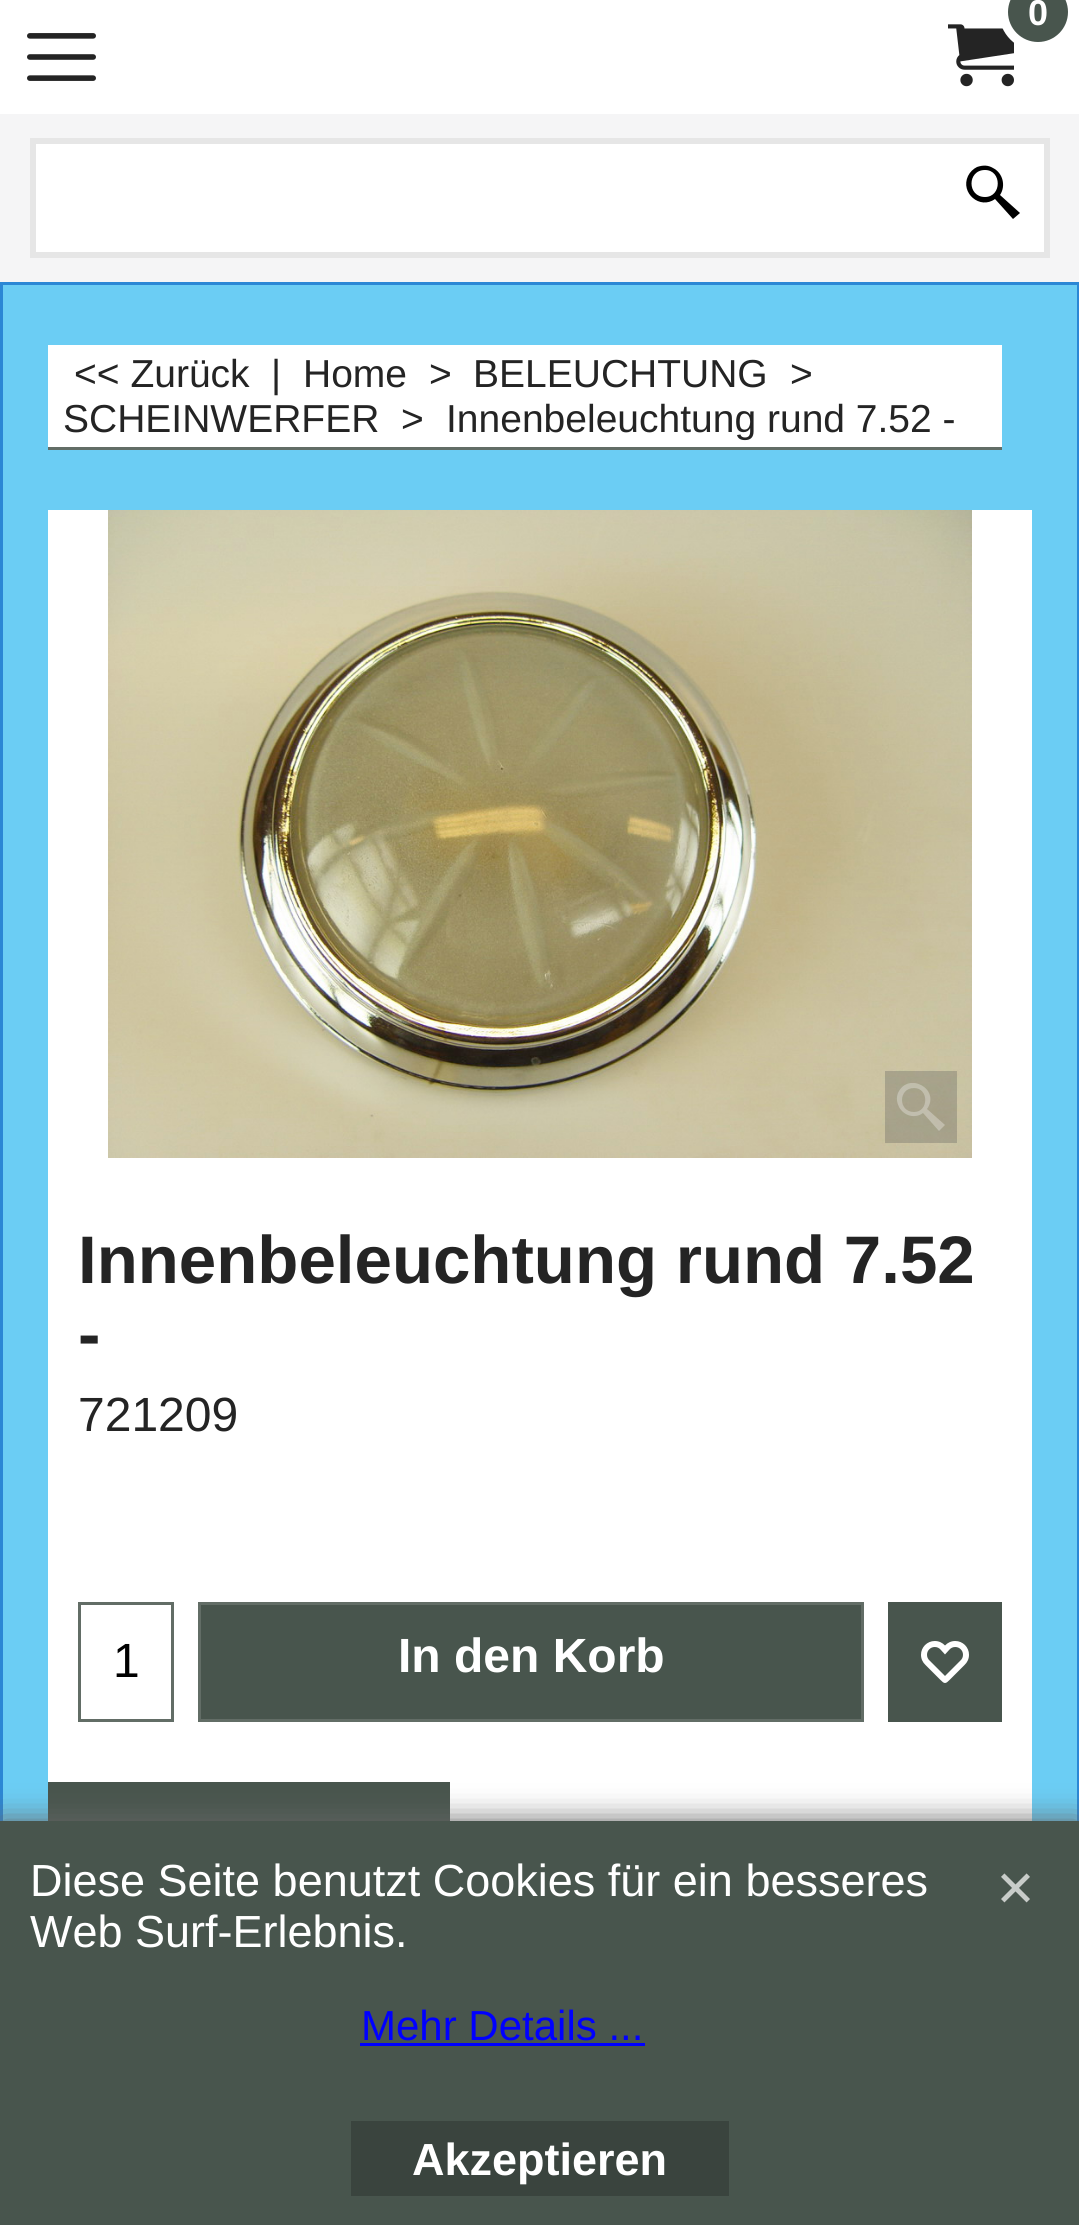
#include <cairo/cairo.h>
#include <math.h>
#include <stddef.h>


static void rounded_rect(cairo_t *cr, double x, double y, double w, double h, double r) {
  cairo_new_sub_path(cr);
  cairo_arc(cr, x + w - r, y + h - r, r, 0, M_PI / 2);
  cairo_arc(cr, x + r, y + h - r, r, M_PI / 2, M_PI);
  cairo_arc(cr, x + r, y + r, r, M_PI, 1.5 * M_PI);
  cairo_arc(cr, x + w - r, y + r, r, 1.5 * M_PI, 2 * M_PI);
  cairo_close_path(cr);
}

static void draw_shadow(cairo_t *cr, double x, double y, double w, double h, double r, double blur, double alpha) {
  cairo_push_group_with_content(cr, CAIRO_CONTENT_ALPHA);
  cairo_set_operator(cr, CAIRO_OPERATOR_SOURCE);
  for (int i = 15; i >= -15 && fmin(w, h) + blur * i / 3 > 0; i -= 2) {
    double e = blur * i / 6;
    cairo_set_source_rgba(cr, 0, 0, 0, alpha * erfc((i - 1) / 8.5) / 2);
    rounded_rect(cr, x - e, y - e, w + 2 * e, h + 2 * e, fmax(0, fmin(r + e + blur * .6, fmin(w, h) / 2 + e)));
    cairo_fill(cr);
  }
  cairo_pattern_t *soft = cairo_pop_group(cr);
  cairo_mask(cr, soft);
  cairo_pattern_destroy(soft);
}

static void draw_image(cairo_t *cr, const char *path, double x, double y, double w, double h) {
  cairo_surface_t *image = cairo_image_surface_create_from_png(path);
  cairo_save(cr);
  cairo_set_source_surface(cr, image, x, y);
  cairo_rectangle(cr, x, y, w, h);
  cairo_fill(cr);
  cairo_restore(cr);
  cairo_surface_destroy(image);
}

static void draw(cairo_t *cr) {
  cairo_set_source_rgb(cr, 43 / 255.0, 135 / 255.0, 213 / 255.0);
  cairo_paint(cr);
  cairo_set_source_rgb(cr, 1, 1, 1);
  cairo_rectangle(cr, 0, 0, 1079, 114);
  cairo_fill(cr);
  draw_image(cr, "images/1.png", 948, 24, 66, 63);
  cairo_set_source_rgb(cr, 72 / 255.0, 85 / 255.0, 77 / 255.0);
  cairo_arc(cr, 1038, 12, 34.5, 0, 2 * M_PI);
  cairo_fill_preserve(cr);
  cairo_set_source_rgb(cr, 1, 1, 1);
  cairo_set_line_width(cr, 9);
  cairo_stroke(cr);
  draw_image(cr, "images/2.png", 27, 33, 69, 48);
  cairo_set_source_rgb(cr, 245 / 255.0, 245 / 255.0, 246 / 255.0);
  cairo_rectangle(cr, 0, 114, 1079, 168);
  cairo_fill(cr);
  cairo_set_source_rgb(cr, 1, 1, 1);
  cairo_rectangle(cr, 33, 141, 1014, 114);
  cairo_fill_preserve(cr);
  cairo_set_source_rgb(cr, 230 / 255.0, 230 / 255.0, 230 / 255.0);
  cairo_set_line_width(cr, 6);
  cairo_stroke(cr);
  cairo_set_source_rgb(cr, 0, 0, 0);
  cairo_new_path(cr);
  cairo_move_to(cr, 1000, 195);
  cairo_curve_to(cr, 1006, 186, 1003, 173, 993, 168);
  cairo_curve_to(cr, 988, 165, 983, 165, 977, 167);
  cairo_curve_to(cr, 973, 169, 970, 172, 968, 176);
  cairo_curve_to(cr, 960, 193, 980, 210, 995, 199);
  cairo_line_to(cr, 1013, 219);
  cairo_line_to(cr, 1020, 213);
  cairo_close_path(cr);
  cairo_move_to(cr, 985, 197);
  cairo_curve_to(cr, 967, 197, 967, 170, 985, 170);
  cairo_curve_to(cr, 1002, 170, 1002, 197, 985, 197);
  cairo_close_path(cr);
  cairo_fill(cr);
  cairo_set_source_rgb(cr, 107 / 255.0, 205 / 255.0, 244 / 255.0);
  cairo_rectangle(cr, 3, 285, 1074, 1536);
  cairo_fill(cr);
  cairo_set_source_rgb(cr, 1, 1, 1);
  cairo_rectangle(cr, 48, 345, 954, 102);
  cairo_fill(cr);
  cairo_set_source_rgb(cr, 98 / 255.0, 109 / 255.0, 102 / 255.0);
  cairo_rectangle(cr, 48, 447, 954, 3);
  cairo_fill(cr);
  cairo_set_source_rgb(cr, 1, 1, 1);
  cairo_rectangle(cr, 48, 510, 984, 1311);
  cairo_fill(cr);
  draw_image(cr, "images/3.png", 108, 510, 864, 648);
  cairo_set_source_rgba(cr, 85 / 255.0, 85 / 255.0, 85 / 255.0, 0.3);
  cairo_rectangle(cr, 885, 1071, 72, 72);
  cairo_fill(cr);
  cairo_set_source_rgba(cr, 1, 1, 1, 0.3);
  cairo_new_path(cr);
  cairo_move_to(cr, 927, 1109);
  cairo_curve_to(cr, 941, 1089, 908, 1071, 898, 1093);
  cairo_curve_to(cr, 896, 1098, 897, 1103, 899, 1107);
  cairo_curve_to(cr, 904, 1116, 915, 1119, 923, 1113);
  cairo_line_to(cr, 939, 1131);
  cairo_line_to(cr, 945, 1125);
  cairo_close_path(cr);
  cairo_move_to(cr, 914, 1112);
  cairo_curve_to(cr, 898, 1112, 898, 1088, 914, 1088);
  cairo_curve_to(cr, 929, 1088, 929, 1112, 914, 1112);
  cairo_close_path(cr);
  cairo_fill(cr);
  cairo_rectangle(cr, 79.5, 1603.5, 93, 117);
  cairo_set_source_rgb(cr, 98 / 255.0, 109 / 255.0, 102 / 255.0);
  cairo_set_line_width(cr, 3);
  cairo_stroke(cr);
  cairo_set_source_rgb(cr, 72 / 255.0, 85 / 255.0, 77 / 255.0);
  cairo_rectangle(cr, 199.5, 1603.5, 663, 117);
  cairo_fill_preserve(cr);
  cairo_set_source_rgb(cr, 98 / 255.0, 109 / 255.0, 102 / 255.0);
  cairo_stroke(cr);
  cairo_set_source_rgb(cr, 72 / 255.0, 85 / 255.0, 77 / 255.0);
  cairo_rectangle(cr, 888, 1602, 114, 120);
  cairo_fill(cr);
  draw_image(cr, "images/4.png", 921, 1641, 48, 42);
  cairo_rectangle(cr, 48, 1782, 402, 39);
  cairo_fill(cr);
  cairo_set_source_rgb(cr, 102 / 255.0, 102 / 255.0, 102 / 255.0);
  draw_shadow(cr, 0, 1821, 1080, 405, 0, 15, 1);
  cairo_set_source_rgb(cr, 72 / 255.0, 85 / 255.0, 77 / 255.0);
  cairo_rectangle(cr, 0, 1821, 1079, 404);
  cairo_fill(cr);
  cairo_set_source_rgb(cr, 0, 0, 1);
  cairo_rectangle(cr, 360, 2043, 285, 3);
  cairo_fill(cr);
  draw_image(cr, "images/5.png", 1001, 1873, 29, 30);
  cairo_set_source_rgb(cr, 58 / 255.0, 68 / 255.0, 62 / 255.0);
  cairo_rectangle(cr, 351, 2121, 378, 75);
  cairo_fill(cr);
  cairo_select_font_face(cr, "Liberation Sans", CAIRO_FONT_SLANT_NORMAL, CAIRO_FONT_WEIGHT_BOLD);
  cairo_set_font_size(cr, 36);
  cairo_set_source_rgb(cr, 1, 1, 1);
  cairo_move_to(cr, 1028, 25);
  cairo_show_text(cr, "0");
  cairo_select_font_face(cr, "Liberation Sans", CAIRO_FONT_SLANT_NORMAL, CAIRO_FONT_WEIGHT_NORMAL);
  cairo_set_font_size(cr, 39);
  cairo_set_source_rgb(cr, 36 / 255.0, 36 / 255.0, 36 / 255.0);
  cairo_move_to(cr, 74, 387);
  cairo_show_text(cr, "<< Zurück");
  cairo_move_to(cr, 271, 387);
  cairo_show_text(cr, "|");
  cairo_move_to(cr, 303, 387);
  cairo_show_text(cr, "Home");
  cairo_move_to(cr, 429, 387);
  cairo_show_text(cr, ">");
  cairo_move_to(cr, 473, 387);
  cairo_show_text(cr, "BELEUCHTUNG");
  cairo_move_to(cr, 790, 387);
  cairo_show_text(cr, ">");
  cairo_move_to(cr, 63, 432);
  cairo_show_text(cr, "SCHEINWERFER");
  cairo_move_to(cr, 401, 432);
  cairo_show_text(cr, ">");
  cairo_move_to(cr, 446, 432);
  cairo_show_text(cr, "Innenbeleuchtung rund 7.52 -");
  cairo_select_font_face(cr, "Liberation Sans", CAIRO_FONT_SLANT_NORMAL, CAIRO_FONT_WEIGHT_BOLD);
  cairo_set_font_size(cr, 67.25);
  cairo_move_to(cr, 78, 1283);
  cairo_show_text(cr, "Innenbeleuchtung rund 7.52");
  cairo_move_to(cr, 78, 1357);
  cairo_show_text(cr, "-");
  cairo_select_font_face(cr, "Liberation Sans", CAIRO_FONT_SLANT_NORMAL, CAIRO_FONT_WEIGHT_NORMAL);
  cairo_set_font_size(cr, 48);
  cairo_move_to(cr, 78, 1431);
  cairo_show_text(cr, "721209");
  cairo_set_source_rgb(cr, 0, 0, 0);
  cairo_move_to(cr, 113, 1677);
  cairo_show_text(cr, "1");
  cairo_select_font_face(cr, "Liberation Sans", CAIRO_FONT_SLANT_NORMAL, CAIRO_FONT_WEIGHT_BOLD);
  cairo_set_source_rgb(cr, 1, 1, 1);
  cairo_move_to(cr, 398, 1672);
  cairo_show_text(cr, "In den Korb");
  cairo_select_font_face(cr, "Liberation Sans", CAIRO_FONT_SLANT_NORMAL, CAIRO_FONT_WEIGHT_NORMAL);
  cairo_set_font_size(cr, 45);
  cairo_move_to(cr, 30, 1896);
  cairo_show_text(cr, "Diese Seite benutzt Cookies für ein besseres");
  cairo_move_to(cr, 30, 1947);
  cairo_show_text(cr, "Web Surf-Erlebnis.");
  cairo_set_font_size(cr, 42);
  cairo_set_source_rgb(cr, 0, 0, 1);
  cairo_move_to(cr, 361, 2040);
  cairo_show_text(cr, "Mehr Details ...");
  cairo_select_font_face(cr, "Liberation Sans", CAIRO_FONT_SLANT_NORMAL, CAIRO_FONT_WEIGHT_BOLD);
  cairo_set_font_size(cr, 45);
  cairo_set_source_rgb(cr, 1, 1, 1);
  cairo_move_to(cr, 412, 2175);
  cairo_show_text(cr, "Akzeptieren");
}

int main(void) {
  cairo_surface_t *surface = cairo_image_surface_create(CAIRO_FORMAT_RGB24, 1079, 2225);
  cairo_t *cr = cairo_create(surface);
  cairo_font_options_t *options = cairo_font_options_create();
  cairo_font_options_set_hint_metrics(options, CAIRO_HINT_METRICS_OFF);
  cairo_font_options_set_hint_style(options, CAIRO_HINT_STYLE_NONE);
  cairo_set_font_options(cr, options);
  cairo_set_miter_limit(cr, 4);
  draw(cr);
  cairo_surface_write_to_png(surface, "out.png");
  cairo_font_options_destroy(options);
  cairo_destroy(cr);
  cairo_surface_destroy(surface);
  return 0;
}
